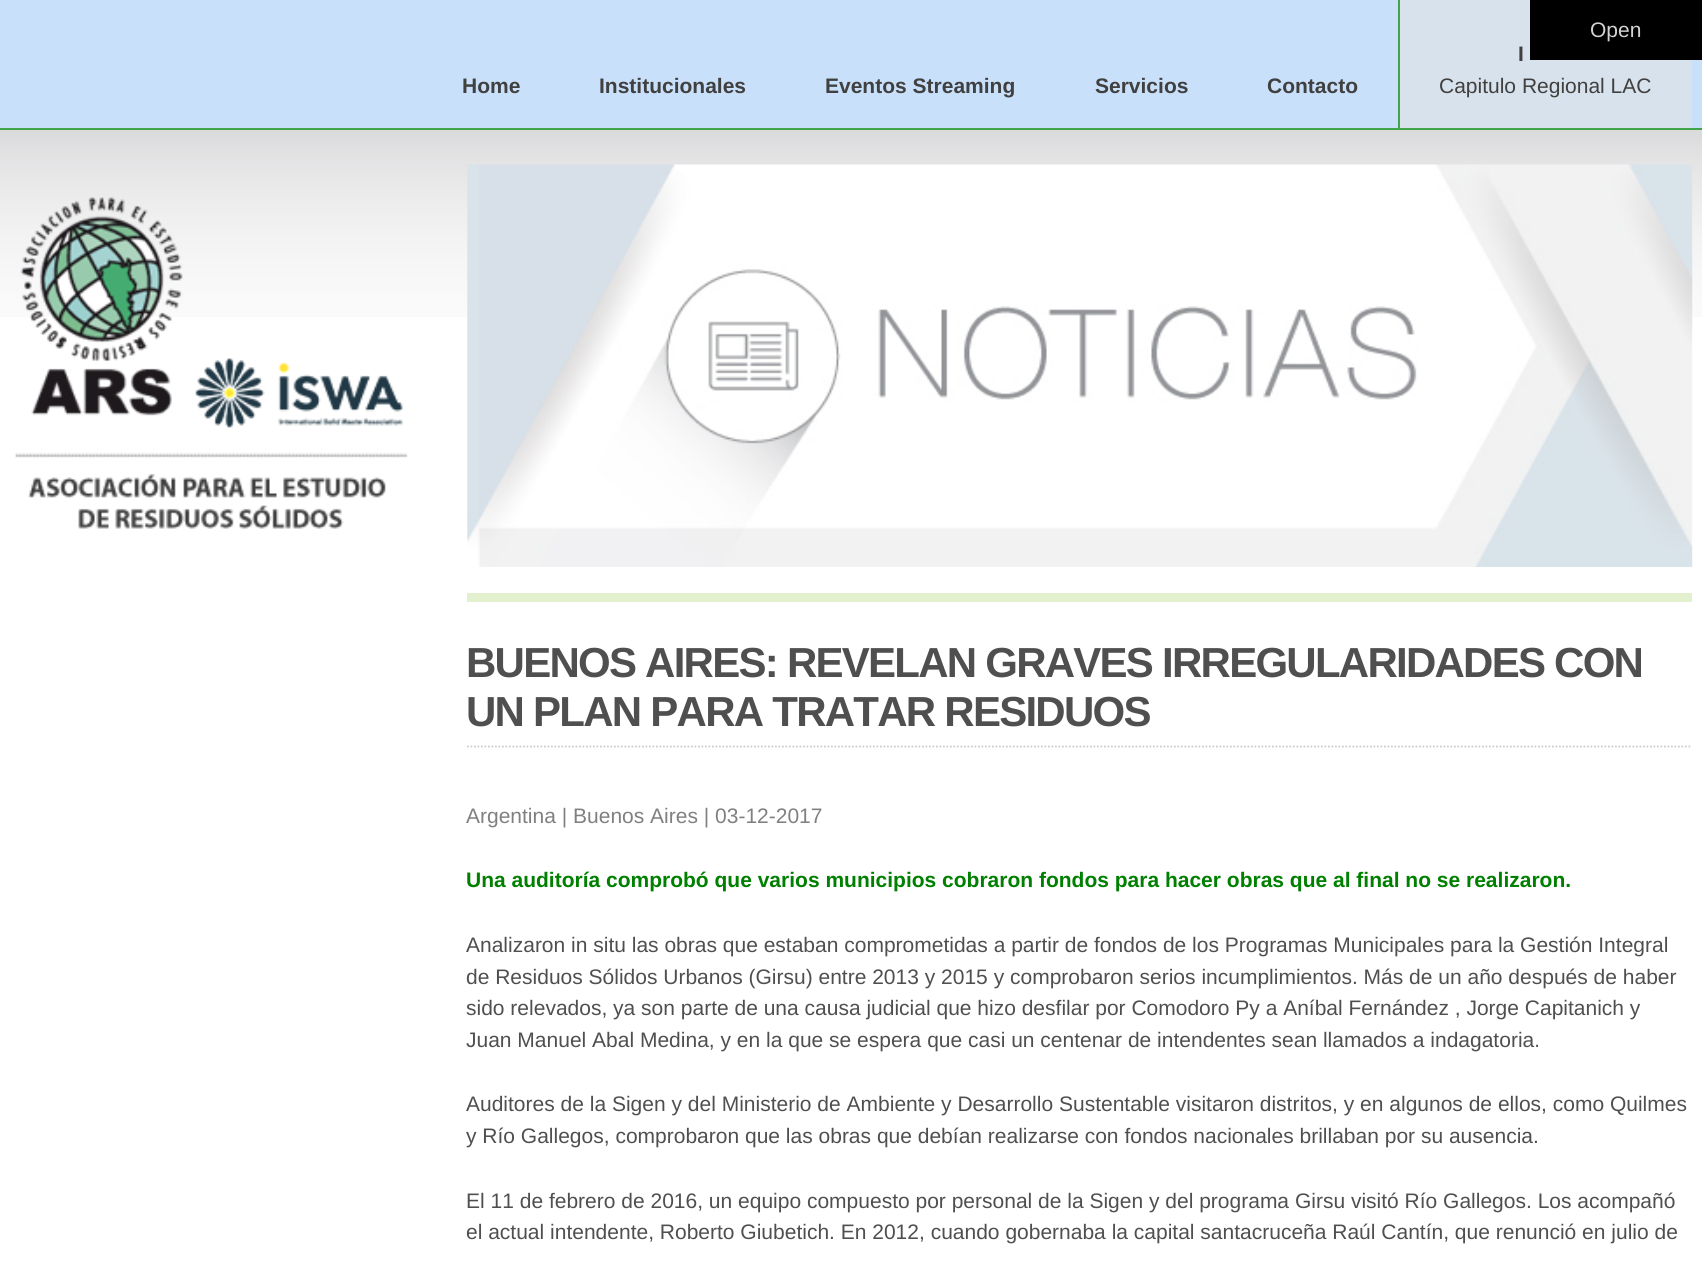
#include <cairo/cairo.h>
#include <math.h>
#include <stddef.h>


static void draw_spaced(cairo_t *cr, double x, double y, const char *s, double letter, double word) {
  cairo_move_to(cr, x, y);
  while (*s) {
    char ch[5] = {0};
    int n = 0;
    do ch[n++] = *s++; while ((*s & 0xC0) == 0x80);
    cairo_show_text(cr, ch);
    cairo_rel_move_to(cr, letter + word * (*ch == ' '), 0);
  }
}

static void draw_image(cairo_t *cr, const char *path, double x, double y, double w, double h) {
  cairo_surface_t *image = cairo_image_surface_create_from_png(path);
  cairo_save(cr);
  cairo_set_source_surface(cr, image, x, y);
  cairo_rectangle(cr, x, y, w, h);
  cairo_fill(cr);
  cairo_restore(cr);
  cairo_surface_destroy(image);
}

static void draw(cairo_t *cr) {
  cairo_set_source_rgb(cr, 1, 1, 1);
  cairo_paint(cr);
  draw_image(cr, "images/1.png", 0, 130, 1702, 187);
  cairo_set_source_rgb(cr, 201 / 255.0, 224 / 255.0, 250 / 255.0);
  cairo_rectangle(cr, 0, 0, 1702, 128);
  cairo_fill(cr);
  cairo_set_source_rgb(cr, 216 / 255.0, 226 / 255.0, 236 / 255.0);
  cairo_rectangle(cr, 1400, 0, 292, 128);
  cairo_fill(cr);
  cairo_set_source_rgb(cr, 0, 0, 0);
  cairo_rectangle(cr, 1530, 0, 172, 60);
  cairo_fill(cr);
  cairo_set_source_rgb(cr, 65 / 255.0, 164 / 255.0, 73 / 255.0);
  cairo_rectangle(cr, 0, 128, 1702, 2);
  cairo_fill(cr);
  cairo_rectangle(cr, 1398, 0, 2, 128);
  cairo_fill(cr);
  draw_image(cr, "images/2.png", 15, 197, 393, 332);
  draw_image(cr, "images/3.png", 467, 164, 1226, 403);
  cairo_set_source_rgb(cr, 226 / 255.0, 240 / 255.0, 206 / 255.0);
  cairo_rectangle(cr, 467, 593, 1225, 9);
  cairo_fill(cr);
  cairo_new_path(cr);
  cairo_move_to(cr, 467, 746.5);
  cairo_line_to(cr, 1692, 746.5);
  cairo_set_source_rgb(cr, 204 / 255.0, 204 / 255.0, 204 / 255.0);
  cairo_set_line_width(cr, 1.8);
  cairo_set_dash(cr, (double[]){1.75, 1.75}, 2, 0);
  cairo_stroke(cr);
  cairo_select_font_face(cr, "Liberation Sans", CAIRO_FONT_SLANT_NORMAL, CAIRO_FONT_WEIGHT_NORMAL);
  cairo_set_font_size(cr, 21);
  cairo_set_source_rgb(cr, 211 / 255.0, 211 / 255.0, 211 / 255.0);
  cairo_move_to(cr, 1590, 37);
  cairo_show_text(cr, "Open");
  cairo_select_font_face(cr, "Liberation Sans", CAIRO_FONT_SLANT_NORMAL, CAIRO_FONT_WEIGHT_BOLD);
  cairo_set_source_rgb(cr, 64 / 255.0, 64 / 255.0, 64 / 255.0);
  cairo_move_to(cr, 462, 93);
  cairo_show_text(cr, "Home");
  cairo_move_to(cr, 599, 93);
  cairo_show_text(cr, "Institucionales");
  cairo_move_to(cr, 825, 93);
  cairo_show_text(cr, "Eventos Streaming");
  cairo_move_to(cr, 1095, 93);
  cairo_show_text(cr, "Servicios");
  cairo_move_to(cr, 1267, 93);
  cairo_show_text(cr, "Contacto");
  cairo_move_to(cr, 1518, 61);
  cairo_show_text(cr, "I");
  cairo_select_font_face(cr, "Liberation Sans", CAIRO_FONT_SLANT_NORMAL, CAIRO_FONT_WEIGHT_NORMAL);
  cairo_move_to(cr, 1439, 93);
  cairo_show_text(cr, "Capitulo Regional LAC");
  cairo_select_font_face(cr, "Liberation Sans", CAIRO_FONT_SLANT_NORMAL, CAIRO_FONT_WEIGHT_BOLD);
  cairo_set_font_size(cr, 42);
  cairo_set_source_rgb(cr, 79 / 255.0, 79 / 255.0, 79 / 255.0);
  draw_spaced(cr, 466, 677, "BUENOS AIRES: REVELAN GRAVES IRREGULARIDADES CON", -1.75, 0);
  draw_spaced(cr, 466, 726, "UN PLAN PARA TRATAR RESIDUOS", -1.75, 0);
  cairo_select_font_face(cr, "Liberation Sans", CAIRO_FONT_SLANT_NORMAL, CAIRO_FONT_WEIGHT_NORMAL);
  cairo_set_font_size(cr, 21);
  cairo_set_source_rgb(cr, 128 / 255.0, 128 / 255.0, 128 / 255.0);
  cairo_move_to(cr, 466, 823);
  cairo_show_text(cr, "Argentina | Buenos Aires | 03-12-2017");
  cairo_select_font_face(cr, "Liberation Sans", CAIRO_FONT_SLANT_NORMAL, CAIRO_FONT_WEIGHT_BOLD);
  cairo_set_source_rgb(cr, 0, 128 / 255.0, 0);
  cairo_move_to(cr, 466, 887);
  cairo_show_text(cr, "Una auditoría comprobó que varios municipios cobraron fondos para hacer obras que al final no se realizaron.");
  cairo_select_font_face(cr, "Liberation Sans", CAIRO_FONT_SLANT_NORMAL, CAIRO_FONT_WEIGHT_NORMAL);
  cairo_set_source_rgb(cr, 79 / 255.0, 79 / 255.0, 79 / 255.0);
  cairo_move_to(cr, 466, 952);
  cairo_show_text(cr, "Analizaron in situ las obras que estaban comprometidas a partir de fondos de los Programas Municipales para la Gestión Integral");
  cairo_move_to(cr, 466, 984);
  cairo_show_text(cr, "de Residuos Sólidos Urbanos (Girsu) entre 2013 y 2015 y comprobaron serios incumplimientos. Más de un año después de haber");
  cairo_move_to(cr, 466, 1015);
  cairo_show_text(cr, "sido relevados, ya son parte de una causa judicial que hizo desfilar por Comodoro Py a Aníbal Fernández , Jorge Capitanich y");
  cairo_move_to(cr, 466, 1047);
  cairo_show_text(cr, "Juan Manuel Abal Medina, y en la que se espera que casi un centenar de intendentes sean llamados a indagatoria.");
  cairo_move_to(cr, 466, 1111);
  cairo_show_text(cr, "Auditores de la Sigen y del Ministerio de Ambiente y Desarrollo Sustentable visitaron distritos, y en algunos de ellos, como Quilmes");
  cairo_move_to(cr, 466, 1143);
  cairo_show_text(cr, "y Río Gallegos, comprobaron que las obras que debían realizarse con fondos nacionales brillaban por su ausencia.");
  cairo_move_to(cr, 466, 1208);
  cairo_show_text(cr, "El 11 de febrero de 2016, un equipo compuesto por personal de la Sigen y del programa Girsu visitó Río Gallegos. Los acompañó");
  cairo_move_to(cr, 466, 1239);
  cairo_show_text(cr, "el actual intendente, Roberto Giubetich. En 2012, cuando gobernaba la capital santacruceña Raúl Cantín, que renunció en julio de");
}

int main(void) {
  cairo_surface_t *surface = cairo_image_surface_create(CAIRO_FORMAT_RGB24, 1702, 1262);
  cairo_t *cr = cairo_create(surface);
  cairo_font_options_t *options = cairo_font_options_create();
  cairo_font_options_set_hint_metrics(options, CAIRO_HINT_METRICS_OFF);
  cairo_font_options_set_hint_style(options, CAIRO_HINT_STYLE_NONE);
  cairo_set_font_options(cr, options);
  cairo_set_miter_limit(cr, 4);
  draw(cr);
  cairo_surface_write_to_png(surface, "out.png");
  cairo_font_options_destroy(options);
  cairo_destroy(cr);
  cairo_surface_destroy(surface);
  return 0;
}
